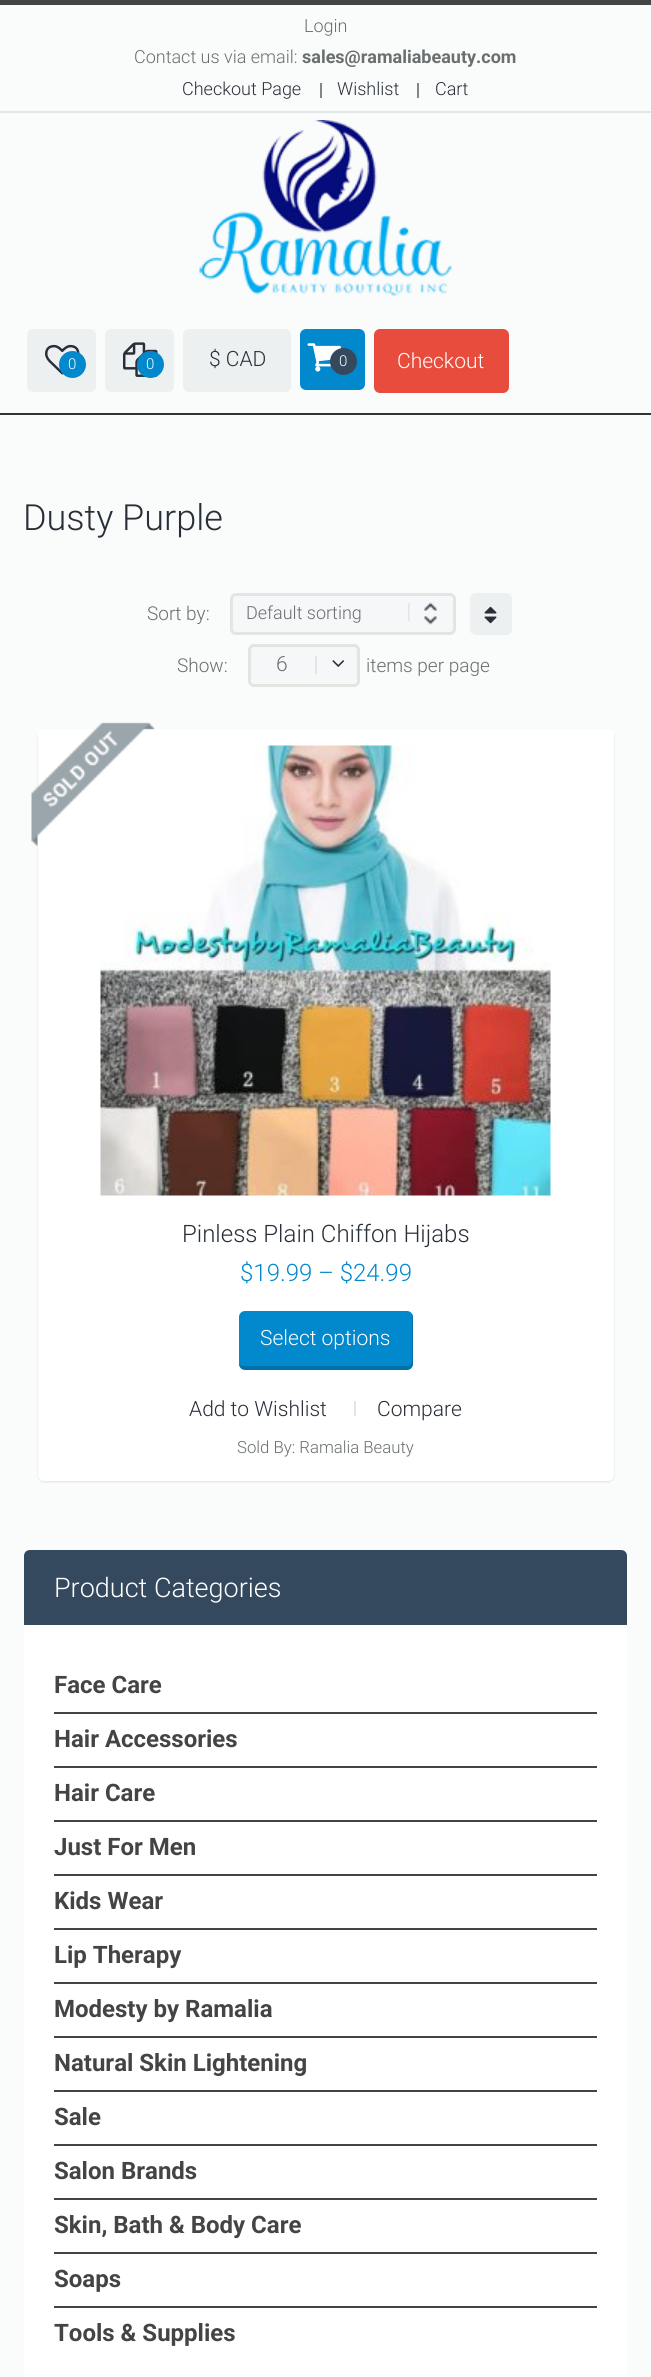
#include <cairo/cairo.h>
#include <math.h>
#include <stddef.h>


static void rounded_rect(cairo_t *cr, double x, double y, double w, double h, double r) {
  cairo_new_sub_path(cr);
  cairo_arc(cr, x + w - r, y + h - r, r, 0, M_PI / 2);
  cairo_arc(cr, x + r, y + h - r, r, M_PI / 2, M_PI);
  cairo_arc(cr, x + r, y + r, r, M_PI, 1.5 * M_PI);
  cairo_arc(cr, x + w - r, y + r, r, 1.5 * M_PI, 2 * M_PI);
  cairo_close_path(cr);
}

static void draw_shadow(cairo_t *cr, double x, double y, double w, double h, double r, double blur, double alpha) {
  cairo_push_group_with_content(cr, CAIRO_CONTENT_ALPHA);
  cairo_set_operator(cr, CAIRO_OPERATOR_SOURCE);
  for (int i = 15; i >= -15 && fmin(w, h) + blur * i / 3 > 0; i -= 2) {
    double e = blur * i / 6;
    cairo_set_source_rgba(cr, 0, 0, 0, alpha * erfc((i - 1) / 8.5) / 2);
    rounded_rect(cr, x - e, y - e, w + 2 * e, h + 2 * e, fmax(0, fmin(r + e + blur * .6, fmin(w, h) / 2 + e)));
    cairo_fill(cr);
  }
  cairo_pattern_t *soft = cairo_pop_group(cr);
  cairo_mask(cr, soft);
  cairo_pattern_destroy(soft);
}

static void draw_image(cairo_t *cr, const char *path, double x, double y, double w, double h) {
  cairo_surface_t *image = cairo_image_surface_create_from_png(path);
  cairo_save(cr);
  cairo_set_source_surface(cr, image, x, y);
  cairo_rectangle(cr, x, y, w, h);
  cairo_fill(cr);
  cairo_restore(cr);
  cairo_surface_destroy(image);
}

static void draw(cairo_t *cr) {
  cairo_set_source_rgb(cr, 250 / 255.0, 251 / 255.0, 251 / 255.0);
  cairo_paint(cr);
  cairo_set_source_rgb(cr, 68 / 255.0, 68 / 255.0, 68 / 255.0);
  cairo_rectangle(cr, 0, 0, 651, 5);
  cairo_fill(cr);
  cairo_set_source_rgb(cr, 226 / 255.0, 230 / 255.0, 231 / 255.0);
  cairo_rectangle(cr, 0, 111, 651, 2);
  cairo_fill(cr);
  cairo_set_source_rgb(cr, 130 / 255.0, 134 / 255.0, 134 / 255.0);
  cairo_rectangle(cr, 320, 83, 2, 15);
  cairo_fill(cr);
  cairo_rectangle(cr, 417, 83, 2, 15);
  cairo_fill(cr);
  draw_image(cr, "images/1.png", 199, 120, 253, 176);
  cairo_set_source_rgb(cr, 236 / 255.0, 240 / 255.0, 241 / 255.0);
  rounded_rect(cr, 27, 329, 69, 63, 6);
  cairo_fill(cr);
  draw_image(cr, "images/2.png", 45, 344, 35, 31);
  cairo_set_source_rgb(cr, 2 / 255.0, 136 / 255.0, 204 / 255.0);
  cairo_arc(cr, 72.5, 364.5, 13.5, 0, 2 * M_PI);
  cairo_fill(cr);
  cairo_set_source_rgb(cr, 236 / 255.0, 240 / 255.0, 241 / 255.0);
  rounded_rect(cr, 105, 329, 69, 63, 6);
  cairo_fill(cr);
  draw_image(cr, "images/3.png", 123, 342, 35, 35);
  cairo_set_source_rgb(cr, 2 / 255.0, 136 / 255.0, 204 / 255.0);
  cairo_arc(cr, 150.5, 364.5, 13.5, 0, 2 * M_PI);
  cairo_fill(cr);
  cairo_set_source_rgb(cr, 236 / 255.0, 240 / 255.0, 241 / 255.0);
  rounded_rect(cr, 183, 329, 108, 63, 6);
  cairo_fill(cr);
  cairo_set_source_rgb(cr, 2 / 255.0, 136 / 255.0, 204 / 255.0);
  rounded_rect(cr, 300, 329, 65, 61, 6);
  cairo_fill(cr);
  draw_image(cr, "images/4.png", 307, 343, 34, 29);
  cairo_set_source_rgb(cr, 52 / 255.0, 73 / 255.0, 94 / 255.0);
  cairo_arc(cr, 343.5, 361.5, 13.5, 0, 2 * M_PI);
  cairo_fill(cr);
  cairo_set_source_rgb(cr, 231 / 255.0, 76 / 255.0, 60 / 255.0);
  rounded_rect(cr, 374, 329, 135, 64, 6);
  cairo_fill(cr);
  cairo_set_source_rgb(cr, 51 / 255.0, 51 / 255.0, 52 / 255.0);
  cairo_rectangle(cr, 0, 413, 651, 2);
  cairo_fill(cr);
  cairo_set_source_rgb(cr, 245 / 255.0, 247 / 255.0, 248 / 255.0);
  rounded_rect(cr, 230, 593, 226, 42, 6);
  cairo_fill(cr);
  draw_image(cr, "images/5.png", 408, 602, 29, 23);
  rounded_rect(cr, 231.5, 594.5, 223, 39, 4.5);
  cairo_set_source_rgb(cr, 228 / 255.0, 228 / 255.0, 226 / 255.0);
  cairo_set_line_width(cr, 3);
  cairo_stroke(cr);
  cairo_set_source_rgb(cr, 236 / 255.0, 240 / 255.0, 241 / 255.0);
  rounded_rect(cr, 470, 593, 42, 42, 6);
  cairo_fill(cr);
  draw_image(cr, "images/6.png", 484, 606, 13, 18);
  cairo_set_source_rgb(cr, 245 / 255.0, 247 / 255.0, 248 / 255.0);
  rounded_rect(cr, 249.5, 645.5, 109, 40, 4.5);
  cairo_fill_preserve(cr);
  cairo_set_source_rgb(cr, 228 / 255.0, 228 / 255.0, 226 / 255.0);
  cairo_stroke(cr);
  cairo_rectangle(cr, 315, 656, 2, 18);
  cairo_fill(cr);
  draw_image(cr, "images/7.png", 332, 660, 12, 7);
  cairo_set_source_rgb(cr, 0, 0, 0);
  draw_shadow(cr, 38, 731, 576, 751, 6, 1, 0.1);
  cairo_set_source_rgb(cr, 1, 1, 1);
  rounded_rect(cr, 39, 730, 574, 750, 5);
  cairo_fill_preserve(cr);
  cairo_set_line_width(cr, 2);
  cairo_stroke(cr);
  draw_image(cr, "images/9.png", 100, 745, 451, 451);
  draw_image(cr, "images/8.png", 31, 722, 124, 124);
  cairo_set_source_rgb(cr, 2 / 255.0, 136 / 255.0, 204 / 255.0);
  rounded_rect(cr, 239, 1311, 174, 59, 6);
  cairo_fill(cr);
  cairo_set_source_rgba(cr, 0, 0, 0, 0.17);
  cairo_new_path(cr);
  cairo_move_to(cr, 239, 1364);
  cairo_curve_to(cr, 239, 1367, 242, 1370, 245, 1370);
  cairo_line_to(cr, 407, 1370);
  cairo_curve_to(cr, 410, 1370, 413, 1367, 413, 1364);
  cairo_line_to(cr, 413, 1317);
  cairo_curve_to(cr, 413, 1316, 413, 1315, 412, 1314);
  cairo_line_to(cr, 412, 1360);
  cairo_curve_to(cr, 412, 1364, 410, 1366, 406, 1366);
  cairo_line_to(cr, 244, 1366);
  cairo_curve_to(cr, 242, 1366, 240, 1365, 239, 1364);
  cairo_close_path(cr);
  cairo_fill(cr);
  cairo_set_source_rgb(cr, 226 / 255.0, 230 / 255.0, 231 / 255.0);
  cairo_rectangle(cr, 354, 1401, 2, 15);
  cairo_fill(cr);
  cairo_save(cr);
  rounded_rect(cr, 24, 1550, 603, 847, 5);
  cairo_clip(cr);
  cairo_set_source_rgb(cr, 52 / 255.0, 73 / 255.0, 94 / 255.0);
  cairo_new_path(cr);
  cairo_move_to(cr, 30, 1550);
  cairo_line_to(cr, 621, 1550);
  cairo_curve_to(cr, 624.5, 1550, 627, 1552.5, 627, 1556);
  cairo_line_to(cr, 627, 1625);
  cairo_line_to(cr, 24, 1625);
  cairo_line_to(cr, 24, 1556);
  cairo_curve_to(cr, 24, 1552.5, 26.5, 1550, 30, 1550);
  cairo_close_path(cr);
  cairo_fill(cr);
  cairo_restore(cr);
  cairo_set_source_rgb(cr, 1, 1, 1);
  cairo_rectangle(cr, 24, 1625, 603, 752);
  cairo_fill(cr);
  cairo_set_source_rgb(cr, 68 / 255.0, 68 / 255.0, 68 / 255.0);
  cairo_rectangle(cr, 54, 1712, 543, 2);
  cairo_fill(cr);
  cairo_rectangle(cr, 54, 1766, 543, 2);
  cairo_fill(cr);
  cairo_rectangle(cr, 54, 1820, 543, 2);
  cairo_fill(cr);
  cairo_rectangle(cr, 54, 1874, 543, 2);
  cairo_fill(cr);
  cairo_rectangle(cr, 54, 1928, 543, 2);
  cairo_fill(cr);
  cairo_rectangle(cr, 54, 1982, 543, 2);
  cairo_fill(cr);
  cairo_rectangle(cr, 54, 2036, 543, 2);
  cairo_fill(cr);
  cairo_rectangle(cr, 54, 2090, 543, 2);
  cairo_fill(cr);
  cairo_rectangle(cr, 54, 2144, 543, 2);
  cairo_fill(cr);
  cairo_rectangle(cr, 54, 2198, 543, 2);
  cairo_fill(cr);
  cairo_rectangle(cr, 54, 2252, 543, 2);
  cairo_fill(cr);
  cairo_rectangle(cr, 54, 2306, 543, 2);
  cairo_fill(cr);
  cairo_select_font_face(cr, "Roboto Light", CAIRO_FONT_SLANT_NORMAL, CAIRO_FONT_WEIGHT_NORMAL);
  cairo_set_font_size(cr, 18);
  cairo_set_source_rgb(cr, 105 / 255.0, 110 / 255.0, 110 / 255.0);
  cairo_move_to(cr, 304, 32);
  cairo_show_text(cr, "Login");
  cairo_move_to(cr, 134, 63);
  cairo_show_text(cr, "Contact us via email:");
  cairo_select_font_face(cr, "Roboto", CAIRO_FONT_SLANT_NORMAL, CAIRO_FONT_WEIGHT_BOLD);
  cairo_move_to(cr, 302, 63);
  cairo_show_text(cr, "sales@ramaliabeauty.com");
  cairo_select_font_face(cr, "Roboto Light", CAIRO_FONT_SLANT_NORMAL, CAIRO_FONT_WEIGHT_NORMAL);
  cairo_set_source_rgb(cr, 41 / 255.0, 47 / 255.0, 56 / 255.0);
  cairo_move_to(cr, 182, 95);
  cairo_show_text(cr, "Checkout Page");
  cairo_move_to(cr, 337, 95);
  cairo_show_text(cr, "Wishlist");
  cairo_move_to(cr, 435, 95);
  cairo_show_text(cr, "Cart");
  cairo_set_font_size(cr, 15);
  cairo_set_source_rgb(cr, 1, 1, 1);
  cairo_move_to(cr, 68, 369);
  cairo_show_text(cr, "0");
  cairo_move_to(cr, 146, 369);
  cairo_show_text(cr, "0");
  cairo_set_font_size(cr, 21);
  cairo_set_source_rgb(cr, 41 / 255.0, 47 / 255.0, 56 / 255.0);
  cairo_move_to(cr, 209, 366);
  cairo_show_text(cr, "$ CAD");
  cairo_set_font_size(cr, 15);
  cairo_set_source_rgb(cr, 1, 1, 1);
  cairo_move_to(cr, 339, 366);
  cairo_show_text(cr, "0");
  cairo_set_font_size(cr, 21);
  cairo_move_to(cr, 397, 368);
  cairo_show_text(cr, "Checkout");
  cairo_set_font_size(cr, 36);
  cairo_set_source_rgb(cr, 41 / 255.0, 47 / 255.0, 56 / 255.0);
  cairo_move_to(cr, 23, 530);
  cairo_show_text(cr, "Dusty Purple");
  cairo_set_font_size(cr, 19);
  cairo_set_source_rgb(cr, 105 / 255.0, 110 / 255.0, 110 / 255.0);
  cairo_move_to(cr, 147, 620);
  cairo_show_text(cr, "Sort by:");
  cairo_set_font_size(cr, 18);
  cairo_move_to(cr, 246, 619);
  cairo_show_text(cr, "Default sorting");
  cairo_set_font_size(cr, 19);
  cairo_move_to(cr, 177, 672);
  cairo_show_text(cr, "Show:");
  cairo_set_font_size(cr, 21);
  cairo_move_to(cr, 276, 671);
  cairo_show_text(cr, "6");
  cairo_set_font_size(cr, 19);
  cairo_move_to(cr, 366, 672);
  cairo_show_text(cr, "items per page");
  cairo_set_font_size(cr, 24);
  cairo_set_source_rgb(cr, 41 / 255.0, 47 / 255.0, 56 / 255.0);
  cairo_move_to(cr, 182, 1242);
  cairo_show_text(cr, "Pinless Plain Chiffon Hijabs");
  cairo_set_source_rgb(cr, 2 / 255.0, 136 / 255.0, 204 / 255.0);
  cairo_move_to(cr, 240, 1281);
  cairo_show_text(cr, "$19.99 – $24.99");
  cairo_set_font_size(cr, 21);
  cairo_set_source_rgb(cr, 1, 1, 1);
  cairo_move_to(cr, 260, 1345);
  cairo_show_text(cr, "Select options");
  cairo_set_source_rgb(cr, 41 / 255.0, 47 / 255.0, 56 / 255.0);
  cairo_move_to(cr, 189, 1416);
  cairo_show_text(cr, "Add to Wishlist");
  cairo_move_to(cr, 377, 1416);
  cairo_show_text(cr, "Compare");
  cairo_set_font_size(cr, 16.75);
  cairo_set_source_rgb(cr, 105 / 255.0, 110 / 255.0, 110 / 255.0);
  cairo_move_to(cr, 237, 1453);
  cairo_show_text(cr, "Sold By: Ramalia Beauty");
  cairo_set_font_size(cr, 27);
  cairo_set_source_rgb(cr, 1, 1, 1);
  cairo_move_to(cr, 54, 1597);
  cairo_show_text(cr, "Product Categories");
  cairo_select_font_face(cr, "Roboto", CAIRO_FONT_SLANT_NORMAL, CAIRO_FONT_WEIGHT_BOLD);
  cairo_set_font_size(cr, 24);
  cairo_set_source_rgb(cr, 68 / 255.0, 68 / 255.0, 68 / 255.0);
  cairo_move_to(cr, 54, 1693);
  cairo_show_text(cr, "Face Care");
  cairo_move_to(cr, 54, 1747);
  cairo_show_text(cr, "Hair Accessories");
  cairo_move_to(cr, 54, 1801);
  cairo_show_text(cr, "Hair Care");
  cairo_move_to(cr, 54, 1855);
  cairo_show_text(cr, "Just For Men");
  cairo_move_to(cr, 54, 1909);
  cairo_show_text(cr, "Kids Wear");
  cairo_move_to(cr, 54, 1963);
  cairo_show_text(cr, "Lip Therapy");
  cairo_move_to(cr, 54, 2017);
  cairo_show_text(cr, "Modesty by Ramalia");
  cairo_move_to(cr, 54, 2071);
  cairo_show_text(cr, "Natural Skin Lightening");
  cairo_move_to(cr, 54, 2125);
  cairo_show_text(cr, "Sale");
  cairo_move_to(cr, 54, 2179);
  cairo_show_text(cr, "Salon Brands");
  cairo_move_to(cr, 54, 2233);
  cairo_show_text(cr, "Skin, Bath & Body Care");
  cairo_move_to(cr, 54, 2287);
  cairo_show_text(cr, "Soaps");
  cairo_move_to(cr, 54, 2341);
  cairo_show_text(cr, "Tools & Supplies");
}

int main(void) {
  cairo_surface_t *surface = cairo_image_surface_create(CAIRO_FORMAT_RGB24, 651, 2377);
  cairo_t *cr = cairo_create(surface);
  cairo_font_options_t *options = cairo_font_options_create();
  cairo_font_options_set_hint_metrics(options, CAIRO_HINT_METRICS_OFF);
  cairo_font_options_set_hint_style(options, CAIRO_HINT_STYLE_NONE);
  cairo_set_font_options(cr, options);
  cairo_set_miter_limit(cr, 4);
  draw(cr);
  cairo_surface_write_to_png(surface, "out.png");
  cairo_font_options_destroy(options);
  cairo_destroy(cr);
  cairo_surface_destroy(surface);
  return 0;
}
